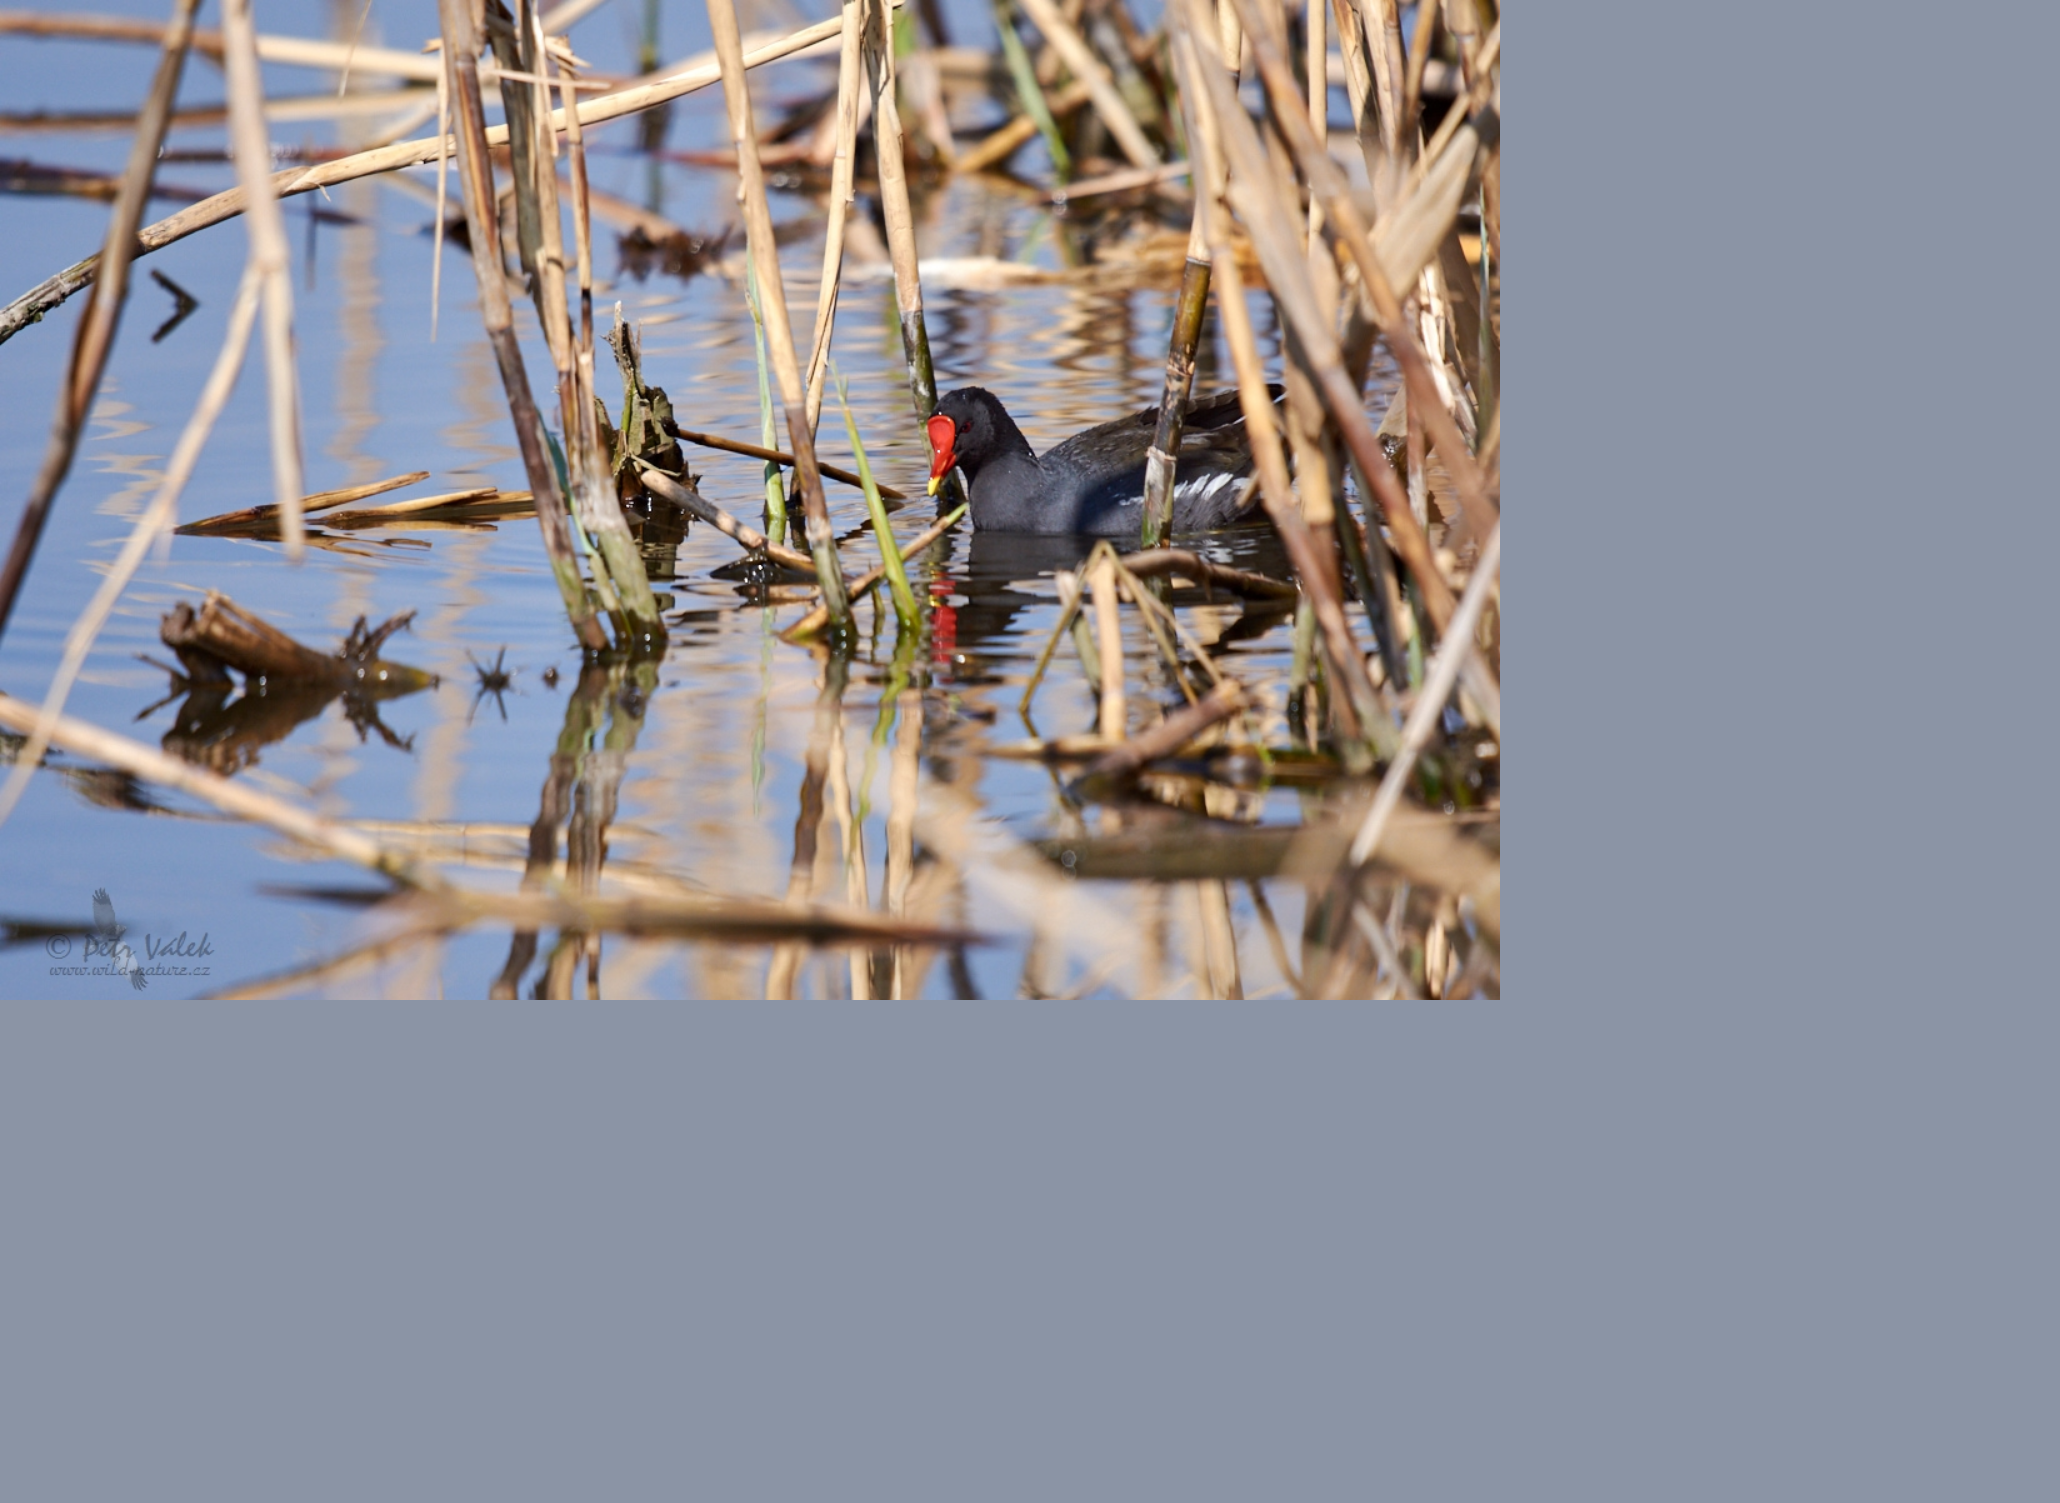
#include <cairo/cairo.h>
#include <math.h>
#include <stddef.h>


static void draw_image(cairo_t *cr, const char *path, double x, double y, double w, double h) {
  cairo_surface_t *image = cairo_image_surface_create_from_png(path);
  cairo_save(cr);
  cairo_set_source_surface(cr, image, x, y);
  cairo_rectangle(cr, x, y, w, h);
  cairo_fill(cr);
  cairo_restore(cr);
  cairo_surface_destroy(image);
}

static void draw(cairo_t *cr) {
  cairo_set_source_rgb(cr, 139 / 255.0, 148 / 255.0, 165 / 255.0);
  cairo_paint(cr);
  draw_image(cr, "images/1.png", 0, 0, 1500, 1000);
}

int main(void) {
  cairo_surface_t *surface = cairo_image_surface_create(CAIRO_FORMAT_RGB24, 2060, 1503);
  cairo_t *cr = cairo_create(surface);
  cairo_font_options_t *options = cairo_font_options_create();
  cairo_font_options_set_hint_metrics(options, CAIRO_HINT_METRICS_OFF);
  cairo_font_options_set_hint_style(options, CAIRO_HINT_STYLE_NONE);
  cairo_set_font_options(cr, options);
  cairo_set_miter_limit(cr, 4);
  draw(cr);
  cairo_surface_write_to_png(surface, "out.png");
  cairo_font_options_destroy(options);
  cairo_destroy(cr);
  cairo_surface_destroy(surface);
  return 0;
}
